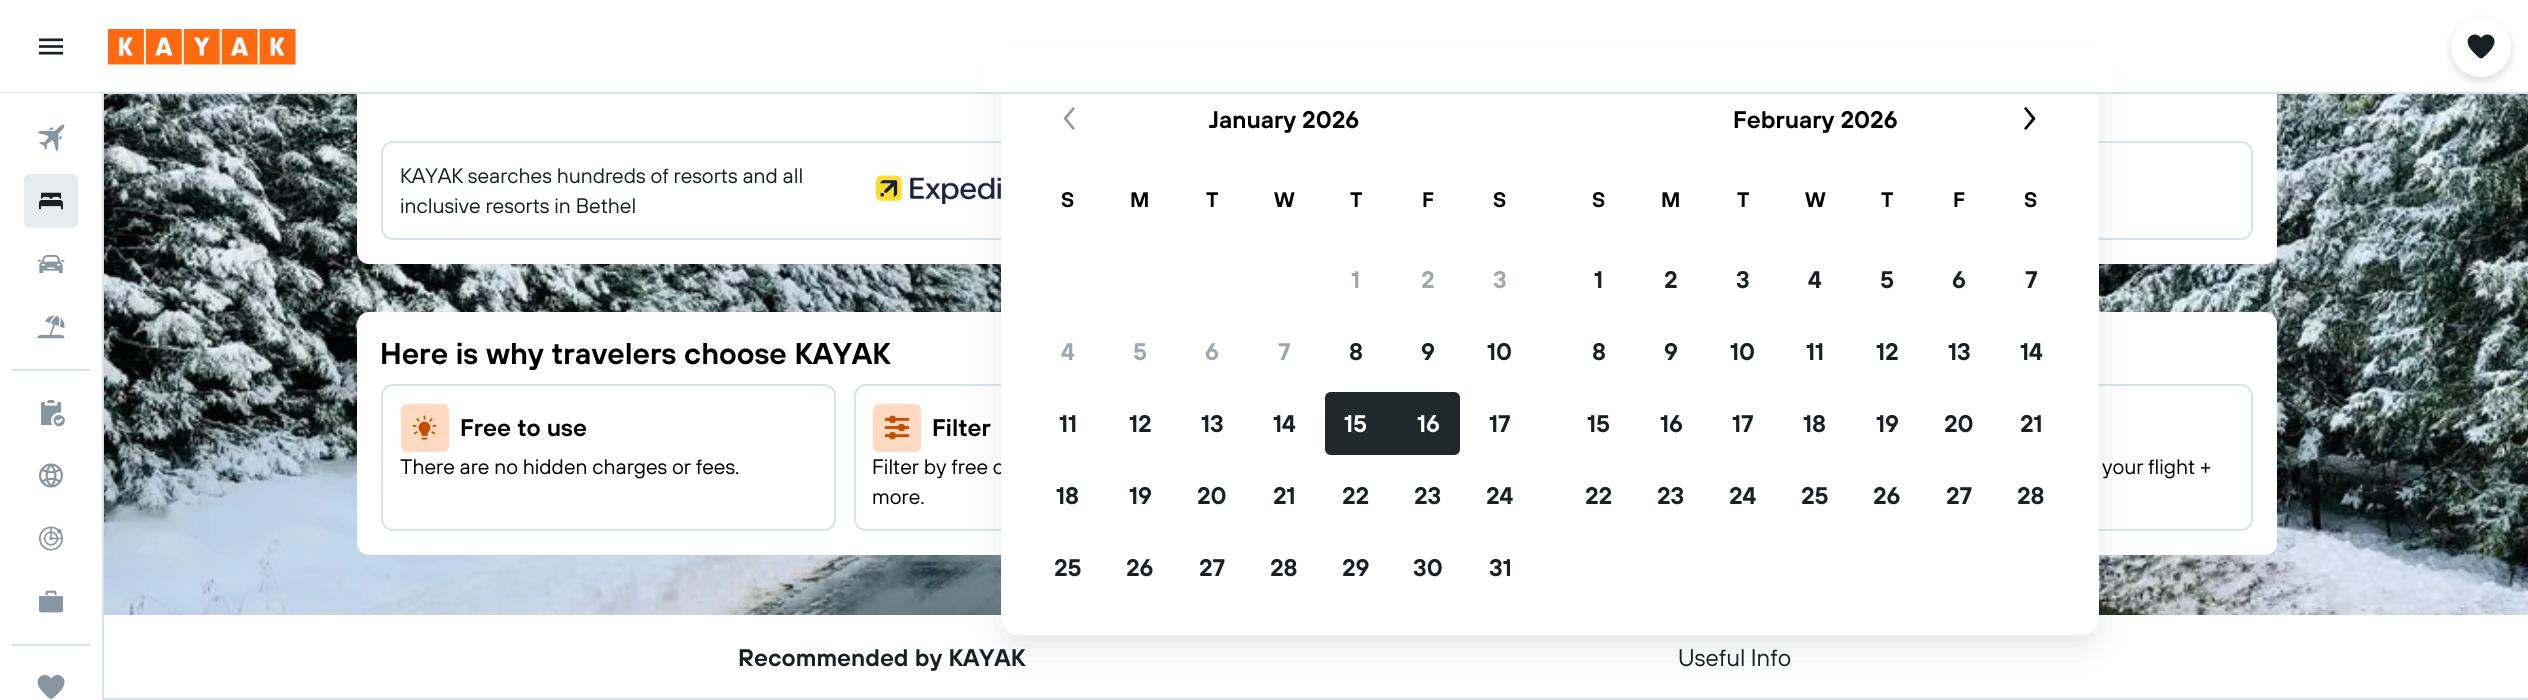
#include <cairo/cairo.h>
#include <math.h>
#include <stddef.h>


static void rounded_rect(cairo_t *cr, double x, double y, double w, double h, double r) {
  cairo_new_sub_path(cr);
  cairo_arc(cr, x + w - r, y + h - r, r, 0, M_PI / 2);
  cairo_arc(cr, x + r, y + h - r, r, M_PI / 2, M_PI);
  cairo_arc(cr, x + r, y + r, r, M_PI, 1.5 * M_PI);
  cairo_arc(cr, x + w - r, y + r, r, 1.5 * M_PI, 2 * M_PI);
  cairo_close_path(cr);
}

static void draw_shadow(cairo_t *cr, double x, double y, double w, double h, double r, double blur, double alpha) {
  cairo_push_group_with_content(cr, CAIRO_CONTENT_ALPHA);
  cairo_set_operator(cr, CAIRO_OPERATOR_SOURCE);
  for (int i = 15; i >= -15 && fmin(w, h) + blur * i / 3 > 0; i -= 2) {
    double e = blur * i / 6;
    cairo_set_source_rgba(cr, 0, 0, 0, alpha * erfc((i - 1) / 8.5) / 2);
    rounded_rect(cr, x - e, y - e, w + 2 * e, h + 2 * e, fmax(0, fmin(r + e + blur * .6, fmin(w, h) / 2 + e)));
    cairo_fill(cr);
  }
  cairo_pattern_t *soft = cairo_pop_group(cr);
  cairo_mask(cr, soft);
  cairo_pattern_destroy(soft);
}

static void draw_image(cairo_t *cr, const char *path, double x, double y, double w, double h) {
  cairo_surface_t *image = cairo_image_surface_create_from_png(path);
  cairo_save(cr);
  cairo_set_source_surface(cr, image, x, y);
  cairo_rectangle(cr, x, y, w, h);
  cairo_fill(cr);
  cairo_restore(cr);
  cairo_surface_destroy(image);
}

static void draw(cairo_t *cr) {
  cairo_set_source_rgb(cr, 1, 1, 1);
  cairo_paint(cr);
  draw_image(cr, "images/13.png", 104, 94, 2424, 521);
  cairo_set_source_rgb(cr, 1, 1, 1);
  rounded_rect(cr, 357, -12, 1920, 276, 12);
  cairo_fill(cr);
  rounded_rect(cr, 382, 142, 1870, 97, 11);
  cairo_set_source_rgb(cr, 217 / 255.0, 226 / 255.0, 232 / 255.0);
  cairo_stroke(cr);
  draw_image(cr, "images/14.png", 876, 175, 125, 29);
  cairo_set_source_rgb(cr, 1, 1, 1);
  rounded_rect(cr, 357, 312, 1920, 243, 12);
  cairo_fill(cr);
  rounded_rect(cr, 855, 385, 452, 145, 11);
  cairo_set_source_rgb(cr, 217 / 255.0, 226 / 255.0, 232 / 255.0);
  cairo_stroke(cr);
  rounded_rect(cr, 1800, 385, 452, 145, 11);
  cairo_stroke(cr);
  cairo_set_source_rgb(cr, 25 / 255.0, 32 / 255.0, 36 / 255.0);
  draw_shadow(cr, 1001, 65, 1098, 585, 18, 15, 0.1);
  draw_image(cr, "images/1.png", 39, 38, 24, 17);
  draw_image(cr, "images/2.png", 108, 29, 188, 36);
  draw_image(cr, "images/4.png", 37, 124, 28, 28);
  cairo_set_source_rgb(cr, 230 / 255.0, 235 / 255.0, 239 / 255.0);
  rounded_rect(cr, 24, 174, 54, 54, 6);
  cairo_fill(cr);
  draw_image(cr, "images/5.png", 39, 192, 24, 18);
  draw_image(cr, "images/6.png", 37, 254, 28, 19);
  draw_image(cr, "images/7.png", 37, 315, 28, 24);
  cairo_set_source_rgb(cr, 217 / 255.0, 226 / 255.0, 232 / 255.0);
  cairo_rectangle(cr, 12, 369, 78, 2);
  cairo_fill(cr);
  draw_image(cr, "images/8.png", 41, 400, 24, 27);
  draw_image(cr, "images/9.png", 39, 463, 24, 25);
  draw_image(cr, "images/10.png", 39, 526, 24, 25);
  draw_image(cr, "images/11.png", 39, 590, 24, 23);
  cairo_rectangle(cr, 12, 644, 78, 2);
  cairo_fill(cr);
  draw_image(cr, "images/12.png", 37, 675, 28, 24);
  rounded_rect(cr, 382, 385, 453, 145, 11);
  cairo_stroke(cr);
  cairo_set_source_rgb(cr, 1, 218 / 255.0, 193 / 255.0);
  rounded_rect(cr, 401, 404, 48, 48, 6);
  cairo_fill(cr);
  draw_image(cr, "images/15.png", 412, 415, 25, 25);
  rounded_rect(cr, 873, 404, 48, 48, 6);
  cairo_fill(cr);
  draw_image(cr, "images/16.png", 885, 415, 24, 25);
  cairo_set_source_rgb(cr, 217 / 255.0, 226 / 255.0, 232 / 255.0);
  cairo_rectangle(cr, 104, 698, 2424, 2);
  cairo_fill(cr);
  cairo_select_font_face(cr, "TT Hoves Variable", CAIRO_FONT_SLANT_NORMAL, CAIRO_FONT_WEIGHT_NORMAL);
  cairo_set_font_size(cr, 21);
  cairo_set_source_rgb(cr, 25 / 255.0, 32 / 255.0, 36 / 255.0);
  cairo_move_to(cr, 400, 183);
  cairo_show_text(cr, "KAYAK searches hundreds of resorts and all");
  cairo_move_to(cr, 400, 213);
  cairo_show_text(cr, "inclusive resorts in Bethel");
  cairo_select_font_face(cr, "TT Hoves Variable SemiBold", CAIRO_FONT_SLANT_NORMAL, CAIRO_FONT_WEIGHT_NORMAL);
  cairo_set_font_size(cr, 30);
  cairo_set_source_rgb(cr, 0, 0, 0);
  cairo_move_to(cr, 380, 364);
  cairo_show_text(cr, "Here is why travelers choose KAYAK");
  cairo_set_font_size(cr, 24);
  cairo_move_to(cr, 460, 436);
  cairo_show_text(cr, "Free to use");
  cairo_select_font_face(cr, "TT Hoves Variable", CAIRO_FONT_SLANT_NORMAL, CAIRO_FONT_WEIGHT_NORMAL);
  cairo_set_font_size(cr, 21);
  cairo_move_to(cr, 400, 474);
  cairo_show_text(cr, "There are no hidden charges or fees.");
  cairo_select_font_face(cr, "TT Hoves Variable SemiBold", CAIRO_FONT_SLANT_NORMAL, CAIRO_FONT_WEIGHT_NORMAL);
  cairo_set_font_size(cr, 24);
  cairo_move_to(cr, 932, 436);
  cairo_show_text(cr, "Filter");
  cairo_select_font_face(cr, "TT Hoves Variable", CAIRO_FONT_SLANT_NORMAL, CAIRO_FONT_WEIGHT_NORMAL);
  cairo_set_font_size(cr, 21);
  cairo_move_to(cr, 872, 474);
  cairo_show_text(cr, "Filter by free c");
  cairo_set_source_rgb(cr, 1, 1, 1);
  rounded_rect(cr, 1001, 50, 1098, 585, 18);
  cairo_fill(cr);
  cairo_set_source_rgb(cr, 217 / 255.0, 226 / 255.0, 232 / 255.0);
  cairo_rectangle(cr, 0, 92, 2528, 2);
  cairo_fill(cr);
  cairo_rectangle(cr, 102, 93, 2, 607);
  cairo_fill(cr);
  cairo_set_source_rgb(cr, 1, 1, 1);
  cairo_rectangle(cr, 0, 93, 102, 1);
  cairo_fill(cr);
  cairo_set_source_rgb(cr, 25 / 255.0, 32 / 255.0, 36 / 255.0);
  draw_shadow(cr, 2451, 21, 60, 60, 30, 4.5, 0.16);
  cairo_set_source_rgb(cr, 1, 1, 1);
  cairo_arc(cr, 2481, 47, 30, 0, 2 * M_PI);
  cairo_fill(cr);
  draw_image(cr, "images/3.png", 2467, 34, 28, 25);
  cairo_rectangle(cr, 984, 47, 1132, 45);
  cairo_fill(cr);
  cairo_set_source_rgb(cr, 153 / 255.0, 153 / 255.0, 153 / 255.0);
  cairo_new_path(cr);
  cairo_move_to(cr, 1073, 130);
  cairo_curve_to(cr, 1063.5, 118.5, 1063, 119, 1064, 117.5);
  cairo_line_to(cr, 1073, 107);
  cairo_line_to(cr, 1075, 108.5);
  cairo_line_to(cr, 1067, 118.5);
  cairo_line_to(cr, 1075, 128.5);
  cairo_close_path(cr);
  cairo_fill(cr);
  cairo_set_source_rgb(cr, 0, 0, 0);
  cairo_new_path(cr);
  cairo_move_to(cr, 2026, 130);
  cairo_line_to(cr, 2024, 128.5);
  cairo_line_to(cr, 2032, 118.5);
  cairo_line_to(cr, 2024, 108.5);
  cairo_line_to(cr, 2026, 107);
  cairo_curve_to(cr, 2035.5, 118.5, 2036, 118, 2035, 119.5);
  cairo_close_path(cr);
  cairo_fill(cr);
  cairo_select_font_face(cr, "TT Hoves Variable SemiBold", CAIRO_FONT_SLANT_NORMAL, CAIRO_FONT_WEIGHT_NORMAL);
  cairo_set_font_size(cr, 24);
  cairo_set_source_rgb(cr, 25 / 255.0, 32 / 255.0, 36 / 255.0);
  cairo_move_to(cr, 2017, 504);
  cairo_show_text(cr, "28");
  cairo_move_to(cr, 1946, 504);
  cairo_show_text(cr, "27");
  cairo_move_to(cr, 1873, 504);
  cairo_show_text(cr, "26");
  cairo_move_to(cr, 1801, 504);
  cairo_show_text(cr, "25");
  cairo_move_to(cr, 1729, 504);
  cairo_show_text(cr, "24");
  cairo_move_to(cr, 1657, 504);
  cairo_show_text(cr, "23");
  cairo_move_to(cr, 1585, 504);
  cairo_show_text(cr, "22");
  cairo_move_to(cr, 2020, 432);
  cairo_show_text(cr, "21");
  cairo_move_to(cr, 1944, 432);
  cairo_show_text(cr, "20");
  cairo_move_to(cr, 1876, 432);
  cairo_show_text(cr, "19");
  cairo_move_to(cr, 1803, 432);
  cairo_show_text(cr, "18");
  cairo_move_to(cr, 1732, 432);
  cairo_show_text(cr, "17");
  cairo_move_to(cr, 1660, 432);
  cairo_show_text(cr, "16");
  cairo_move_to(cr, 1587, 432);
  cairo_show_text(cr, "15");
  cairo_move_to(cr, 2020, 360);
  cairo_show_text(cr, "14");
  cairo_move_to(cr, 1948, 360);
  cairo_show_text(cr, "13");
  cairo_move_to(cr, 1876, 360);
  cairo_show_text(cr, "12");
  cairo_move_to(cr, 1806, 360);
  cairo_show_text(cr, "11");
  cairo_move_to(cr, 1730, 360);
  cairo_show_text(cr, "10");
  cairo_move_to(cr, 1664, 360);
  cairo_show_text(cr, "9");
  cairo_move_to(cr, 1592, 360);
  cairo_show_text(cr, "8");
  cairo_move_to(cr, 2025, 288);
  cairo_show_text(cr, "7");
  cairo_move_to(cr, 1952, 288);
  cairo_show_text(cr, "6");
  cairo_move_to(cr, 1880, 288);
  cairo_show_text(cr, "5");
  cairo_move_to(cr, 1808, 288);
  cairo_show_text(cr, "4");
  cairo_move_to(cr, 1736, 288);
  cairo_show_text(cr, "3");
  cairo_move_to(cr, 1664, 288);
  cairo_show_text(cr, "2");
  cairo_move_to(cr, 1594, 288);
  cairo_show_text(cr, "1");
  cairo_set_source_rgb(cr, 0, 0, 0);
  cairo_move_to(cr, 1733, 128);
  cairo_show_text(cr, "February 2026");
  cairo_set_source_rgb(cr, 25 / 255.0, 32 / 255.0, 36 / 255.0);
  cairo_move_to(cr, 1489, 576);
  cairo_show_text(cr, "31");
  cairo_move_to(cr, 1413, 576);
  cairo_show_text(cr, "30");
  cairo_move_to(cr, 1342, 576);
  cairo_show_text(cr, "29");
  cairo_move_to(cr, 1270, 576);
  cairo_show_text(cr, "28");
  cairo_move_to(cr, 1199, 576);
  cairo_show_text(cr, "27");
  cairo_move_to(cr, 1126, 576);
  cairo_show_text(cr, "26");
  cairo_move_to(cr, 1054, 576);
  cairo_show_text(cr, "25");
  cairo_move_to(cr, 1486, 504);
  cairo_show_text(cr, "24");
  cairo_move_to(cr, 1414, 504);
  cairo_show_text(cr, "23");
  cairo_move_to(cr, 1342, 504);
  cairo_show_text(cr, "22");
  cairo_move_to(cr, 1273, 504);
  cairo_show_text(cr, "21");
  cairo_move_to(cr, 1197, 504);
  cairo_show_text(cr, "20");
  cairo_move_to(cr, 1129, 504);
  cairo_show_text(cr, "19");
  cairo_move_to(cr, 1056, 504);
  cairo_show_text(cr, "18");
  cairo_move_to(cr, 1489, 432);
  cairo_show_text(cr, "17");
  cairo_set_source_rgb(cr, 31 / 255.0, 40 / 255.0, 45 / 255.0);
  cairo_new_path(cr);
  cairo_move_to(cr, 1392, 392);
  cairo_line_to(cr, 1454, 392);
  cairo_curve_to(cr, 1457.5, 392, 1460, 394.5, 1460, 398);
  cairo_line_to(cr, 1460, 449);
  cairo_curve_to(cr, 1460, 452.5, 1457.5, 455, 1454, 455);
  cairo_line_to(cr, 1392, 455);
  cairo_close_path(cr);
  cairo_fill(cr);
  cairo_set_source_rgb(cr, 1, 1, 1);
  cairo_move_to(cr, 1417, 432);
  cairo_show_text(cr, "16");
  cairo_set_source_rgb(cr, 31 / 255.0, 40 / 255.0, 45 / 255.0);
  cairo_new_path(cr);
  cairo_move_to(cr, 1331, 392);
  cairo_line_to(cr, 1392, 392);
  cairo_line_to(cr, 1392, 455);
  cairo_line_to(cr, 1331, 455);
  cairo_curve_to(cr, 1327.5, 455, 1325, 452.5, 1325, 449);
  cairo_line_to(cr, 1325, 398);
  cairo_curve_to(cr, 1325, 394.5, 1327.5, 392, 1331, 392);
  cairo_close_path(cr);
  cairo_fill(cr);
  cairo_set_source_rgb(cr, 1, 1, 1);
  cairo_move_to(cr, 1344, 432);
  cairo_show_text(cr, "15");
  cairo_set_source_rgb(cr, 25 / 255.0, 32 / 255.0, 36 / 255.0);
  cairo_move_to(cr, 1273, 432);
  cairo_show_text(cr, "14");
  cairo_move_to(cr, 1201, 432);
  cairo_show_text(cr, "13");
  cairo_move_to(cr, 1129, 432);
  cairo_show_text(cr, "12");
  cairo_move_to(cr, 1059, 432);
  cairo_show_text(cr, "11");
  cairo_move_to(cr, 1487, 360);
  cairo_show_text(cr, "10");
  cairo_move_to(cr, 1421, 360);
  cairo_show_text(cr, "9");
  cairo_move_to(cr, 1349, 360);
  cairo_show_text(cr, "8");
  cairo_set_source_rgb(cr, 155 / 255.0, 168 / 255.0, 176 / 255.0);
  cairo_move_to(cr, 1278, 360);
  cairo_show_text(cr, "7");
  cairo_move_to(cr, 1205, 360);
  cairo_show_text(cr, "6");
  cairo_move_to(cr, 1133, 360);
  cairo_show_text(cr, "5");
  cairo_move_to(cr, 1061, 360);
  cairo_show_text(cr, "4");
  cairo_move_to(cr, 1493, 288);
  cairo_show_text(cr, "3");
  cairo_move_to(cr, 1421, 288);
  cairo_show_text(cr, "2");
  cairo_move_to(cr, 1351, 288);
  cairo_show_text(cr, "1");
  cairo_set_source_rgb(cr, 0, 0, 0);
  cairo_move_to(cr, 1209, 128);
  cairo_show_text(cr, "January 2026");
  cairo_set_font_size(cr, 21);
  cairo_move_to(cr, 2024, 207);
  cairo_show_text(cr, "S");
  cairo_move_to(cr, 1953, 207);
  cairo_show_text(cr, "F");
  cairo_move_to(cr, 1881, 207);
  cairo_show_text(cr, "T");
  cairo_move_to(cr, 1805, 207);
  cairo_show_text(cr, "W");
  cairo_move_to(cr, 1737, 207);
  cairo_show_text(cr, "T");
  cairo_move_to(cr, 1661, 207);
  cairo_show_text(cr, "M");
  cairo_move_to(cr, 1592, 207);
  cairo_show_text(cr, "S");
  cairo_move_to(cr, 1493, 207);
  cairo_show_text(cr, "S");
  cairo_move_to(cr, 1422, 207);
  cairo_show_text(cr, "F");
  cairo_move_to(cr, 1350, 207);
  cairo_show_text(cr, "T");
  cairo_move_to(cr, 1274, 207);
  cairo_show_text(cr, "W");
  cairo_move_to(cr, 1206, 207);
  cairo_show_text(cr, "T");
  cairo_move_to(cr, 1130, 207);
  cairo_show_text(cr, "M");
  cairo_move_to(cr, 1061, 207);
  cairo_show_text(cr, "S");
  cairo_select_font_face(cr, "TT Hoves Variable", CAIRO_FONT_SLANT_NORMAL, CAIRO_FONT_WEIGHT_NORMAL);
  cairo_move_to(cr, 872, 504);
  cairo_show_text(cr, "more.");
  cairo_move_to(cr, 2102, 474);
  cairo_show_text(cr, "your flight +");
  cairo_select_font_face(cr, "TT Hoves Variable SemiBold", CAIRO_FONT_SLANT_NORMAL, CAIRO_FONT_WEIGHT_NORMAL);
  cairo_set_font_size(cr, 24);
  cairo_set_source_rgb(cr, 25 / 255.0, 32 / 255.0, 36 / 255.0);
  cairo_move_to(cr, 738, 666);
  cairo_show_text(cr, "Recommended by KAYAK");
  cairo_select_font_face(cr, "TT Hoves Variable", CAIRO_FONT_SLANT_NORMAL, CAIRO_FONT_WEIGHT_NORMAL);
  cairo_move_to(cr, 1678, 666);
  cairo_show_text(cr, "Useful Info");
}

int main(void) {
  cairo_surface_t *surface = cairo_image_surface_create(CAIRO_FORMAT_RGB24, 2528, 700);
  cairo_t *cr = cairo_create(surface);
  cairo_font_options_t *options = cairo_font_options_create();
  cairo_font_options_set_hint_metrics(options, CAIRO_HINT_METRICS_OFF);
  cairo_font_options_set_hint_style(options, CAIRO_HINT_STYLE_NONE);
  cairo_set_font_options(cr, options);
  cairo_set_miter_limit(cr, 4);
  draw(cr);
  cairo_surface_write_to_png(surface, "out.png");
  cairo_font_options_destroy(options);
  cairo_destroy(cr);
  cairo_surface_destroy(surface);
  return 0;
}
